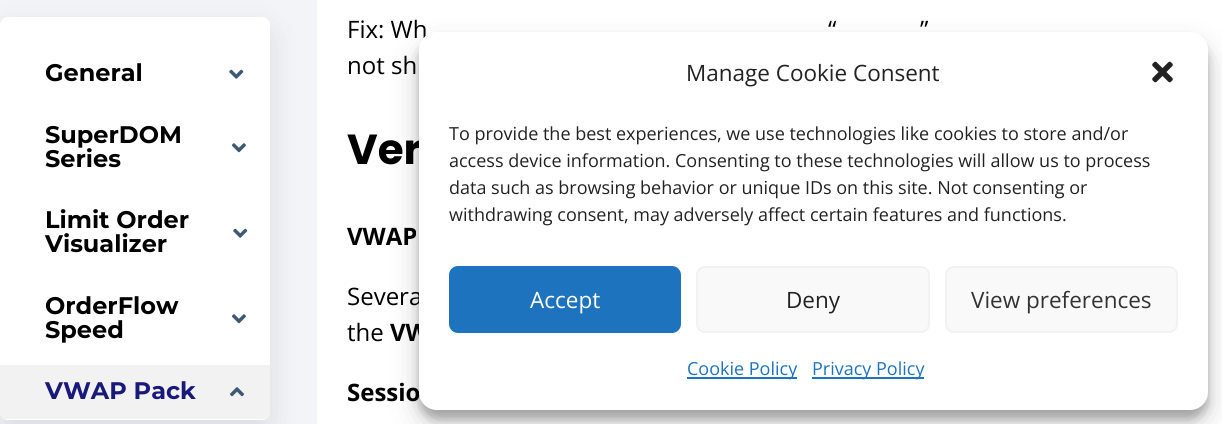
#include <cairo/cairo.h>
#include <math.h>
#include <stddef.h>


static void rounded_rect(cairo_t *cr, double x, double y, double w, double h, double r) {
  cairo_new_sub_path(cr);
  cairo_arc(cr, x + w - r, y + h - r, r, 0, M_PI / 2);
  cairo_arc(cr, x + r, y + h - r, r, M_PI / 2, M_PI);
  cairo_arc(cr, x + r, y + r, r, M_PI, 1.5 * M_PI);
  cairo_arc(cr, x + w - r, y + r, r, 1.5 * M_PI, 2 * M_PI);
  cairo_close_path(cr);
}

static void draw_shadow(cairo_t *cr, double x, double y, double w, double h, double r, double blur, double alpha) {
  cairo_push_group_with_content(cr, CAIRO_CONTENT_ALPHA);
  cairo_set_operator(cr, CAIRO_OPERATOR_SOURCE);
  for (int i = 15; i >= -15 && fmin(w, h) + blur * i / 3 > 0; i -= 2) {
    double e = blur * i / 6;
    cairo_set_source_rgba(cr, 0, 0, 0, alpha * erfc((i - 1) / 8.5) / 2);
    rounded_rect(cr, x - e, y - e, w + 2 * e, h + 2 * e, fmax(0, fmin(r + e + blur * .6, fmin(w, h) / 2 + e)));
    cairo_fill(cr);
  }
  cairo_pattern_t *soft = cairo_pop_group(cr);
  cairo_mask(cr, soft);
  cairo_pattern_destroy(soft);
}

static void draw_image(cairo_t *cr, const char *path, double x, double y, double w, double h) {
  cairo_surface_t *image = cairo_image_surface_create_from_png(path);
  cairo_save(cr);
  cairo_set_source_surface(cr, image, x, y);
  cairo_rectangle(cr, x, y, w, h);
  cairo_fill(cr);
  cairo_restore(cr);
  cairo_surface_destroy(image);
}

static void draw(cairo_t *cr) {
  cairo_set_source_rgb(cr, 242 / 255.0, 244 / 255.0, 247 / 255.0);
  cairo_paint(cr);
  cairo_set_source_rgb(cr, 0, 1 / 255.0, 35 / 255.0);
  draw_shadow(cr, 0, 29, 270, 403, 8, 15, 0.1);
  cairo_set_source_rgb(cr, 1, 1, 1);
  rounded_rect(cr, 0, 17, 270, 403, 8);
  cairo_fill(cr);
  draw_image(cr, "images/1.png", 229, 69, 15, 10);
  draw_image(cr, "images/2.png", 231, 143, 15, 10);
  draw_image(cr, "images/3.png", 233, 228, 15, 10);
  draw_image(cr, "images/4.png", 231, 314, 15, 10);
  cairo_save(cr);
  rounded_rect(cr, 0, 17, 270, 403, 8);
  cairo_clip(cr);
  cairo_set_source_rgb(cr, 242 / 255.0, 242 / 255.0, 242 / 255.0);
  cairo_rectangle(cr, 0, 365, 270, 54);
  cairo_fill(cr);
  cairo_restore(cr);
  draw_image(cr, "images/5.png", 230, 387, 14, 10);
  cairo_save(cr);
  rounded_rect(cr, 0, 17, 270, 403, 8);
  cairo_clip(cr);
  cairo_rectangle(cr, 0, 419, 270, 1);
  cairo_fill(cr);
  cairo_restore(cr);
  cairo_rectangle(cr, 317, 0, 905, 424);
  cairo_fill(cr);
  cairo_set_source_rgb(cr, 0, 0, 0);
  draw_shadow(cr, 419, 41, 789, 378, 18, 4.5, 0.23);
  draw_shadow(cr, 419, 47, 789, 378, 18, 15, 0.19);
  cairo_select_font_face(cr, "Montserrat", CAIRO_FONT_SLANT_NORMAL, CAIRO_FONT_WEIGHT_BOLD);
  cairo_set_font_size(cr, 24);
  cairo_set_source_rgb(cr, 0, 0, 0);
  cairo_move_to(cr, 45, 81);
  cairo_show_text(cr, "General");
  cairo_move_to(cr, 45, 143);
  cairo_show_text(cr, "SuperDOM");
  cairo_move_to(cr, 45, 167);
  cairo_show_text(cr, "Series");
  cairo_move_to(cr, 45, 228);
  cairo_show_text(cr, "Limit Order");
  cairo_move_to(cr, 45, 252);
  cairo_show_text(cr, "Visualizer");
  cairo_move_to(cr, 45, 314);
  cairo_show_text(cr, "OrderFlow");
  cairo_move_to(cr, 45, 338);
  cairo_show_text(cr, "Speed");
  cairo_set_source_rgb(cr, 25 / 255.0, 25 / 255.0, 124 / 255.0);
  cairo_move_to(cr, 45, 399);
  cairo_show_text(cr, "VWAP Pack");
  cairo_select_font_face(cr, "Open Sans", CAIRO_FONT_SLANT_NORMAL, CAIRO_FONT_WEIGHT_NORMAL);
  cairo_set_source_rgb(cr, 0, 0, 0);
  cairo_move_to(cr, 347, 38);
  cairo_show_text(cr, "Fix: Wh");
  cairo_move_to(cr, 828, 38);
  cairo_show_text(cr, "“");
  cairo_move_to(cr, 920, 38);
  cairo_show_text(cr, "”");
  cairo_move_to(cr, 347, 74);
  cairo_show_text(cr, "not sh");
  cairo_select_font_face(cr, "Poppins", CAIRO_FONT_SLANT_NORMAL, CAIRO_FONT_WEIGHT_BOLD);
  cairo_set_font_size(cr, 42);
  cairo_move_to(cr, 347, 164);
  cairo_show_text(cr, "Ver");
  cairo_select_font_face(cr, "Open Sans", CAIRO_FONT_SLANT_NORMAL, CAIRO_FONT_WEIGHT_BOLD);
  cairo_set_font_size(cr, 24);
  cairo_move_to(cr, 347, 245);
  cairo_show_text(cr, "VWAP");
  cairo_select_font_face(cr, "Open Sans", CAIRO_FONT_SLANT_NORMAL, CAIRO_FONT_WEIGHT_NORMAL);
  cairo_move_to(cr, 347, 305);
  cairo_show_text(cr, "Severa");
  cairo_move_to(cr, 347, 341);
  cairo_show_text(cr, "the");
  cairo_select_font_face(cr, "Open Sans", CAIRO_FONT_SLANT_NORMAL, CAIRO_FONT_WEIGHT_BOLD);
  cairo_move_to(cr, 390, 341);
  cairo_show_text(cr, "VW");
  cairo_move_to(cr, 347, 401);
  cairo_show_text(cr, "Sessio");
  cairo_set_source_rgb(cr, 1, 1, 1);
  rounded_rect(cr, 419, 32, 789, 378, 18);
  cairo_fill(cr);
  cairo_select_font_face(cr, "Open Sans", CAIRO_FONT_SLANT_NORMAL, CAIRO_FONT_WEIGHT_NORMAL);
  cairo_set_font_size(cr, 22.5);
  cairo_set_source_rgb(cr, 34 / 255.0, 34 / 255.0, 34 / 255.0);
  cairo_move_to(cr, 686, 81);
  cairo_show_text(cr, "Manage Cookie Consent");
  draw_image(cr, "images/6.png", 1152, 61, 21, 22);
  cairo_set_font_size(cr, 18);
  cairo_move_to(cr, 449, 140);
  cairo_show_text(cr, "To provide the best experiences, we use technologies like cookies to store and/or");
  cairo_move_to(cr, 449, 167);
  cairo_show_text(cr, "access device information. Consenting to these technologies will allow us to process");
  cairo_move_to(cr, 449, 194);
  cairo_show_text(cr, "data such as browsing behavior or unique IDs on this site. Not consenting or");
  cairo_move_to(cr, 449, 221);
  cairo_show_text(cr, "withdrawing consent, may adversely affect certain features and functions.");
  cairo_set_source_rgb(cr, 30 / 255.0, 115 / 255.0, 190 / 255.0);
  rounded_rect(cr, 450, 267, 230, 65, 8);
  cairo_fill_preserve(cr);
  cairo_stroke(cr);
  cairo_set_font_size(cr, 22.5);
  cairo_set_source_rgb(cr, 1, 1, 1);
  cairo_move_to(cr, 530, 308);
  cairo_show_text(cr, "Accept");
  cairo_set_source_rgb(cr, 249 / 255.0, 249 / 255.0, 249 / 255.0);
  rounded_rect(cr, 697, 267, 232, 65, 8);
  cairo_fill_preserve(cr);
  cairo_set_source_rgb(cr, 242 / 255.0, 242 / 255.0, 242 / 255.0);
  cairo_stroke(cr);
  cairo_set_source_rgb(cr, 34 / 255.0, 34 / 255.0, 34 / 255.0);
  cairo_move_to(cr, 786, 308);
  cairo_show_text(cr, "Deny");
  cairo_set_source_rgb(cr, 249 / 255.0, 249 / 255.0, 249 / 255.0);
  rounded_rect(cr, 946, 267, 231, 65, 8);
  cairo_fill_preserve(cr);
  cairo_set_source_rgb(cr, 242 / 255.0, 242 / 255.0, 242 / 255.0);
  cairo_stroke(cr);
  cairo_set_source_rgb(cr, 51 / 255.0, 51 / 255.0, 51 / 255.0);
  cairo_move_to(cr, 971, 308);
  cairo_show_text(cr, "View preferences");
  cairo_set_source_rgb(cr, 30 / 255.0, 115 / 255.0, 190 / 255.0);
  cairo_rectangle(cr, 687, 377, 110, 2);
  cairo_fill(cr);
  cairo_set_font_size(cr, 18);
  cairo_move_to(cr, 687, 375);
  cairo_show_text(cr, "Cookie Policy");
  cairo_rectangle(cr, 812, 377, 112, 2);
  cairo_fill(cr);
  cairo_move_to(cr, 812, 375);
  cairo_show_text(cr, "Privacy Policy");
}

int main(void) {
  cairo_surface_t *surface = cairo_image_surface_create(CAIRO_FORMAT_RGB24, 1222, 424);
  cairo_t *cr = cairo_create(surface);
  cairo_font_options_t *options = cairo_font_options_create();
  cairo_font_options_set_hint_metrics(options, CAIRO_HINT_METRICS_OFF);
  cairo_font_options_set_hint_style(options, CAIRO_HINT_STYLE_NONE);
  cairo_set_font_options(cr, options);
  cairo_set_miter_limit(cr, 4);
  draw(cr);
  cairo_surface_write_to_png(surface, "out.png");
  cairo_font_options_destroy(options);
  cairo_destroy(cr);
  cairo_surface_destroy(surface);
  return 0;
}
